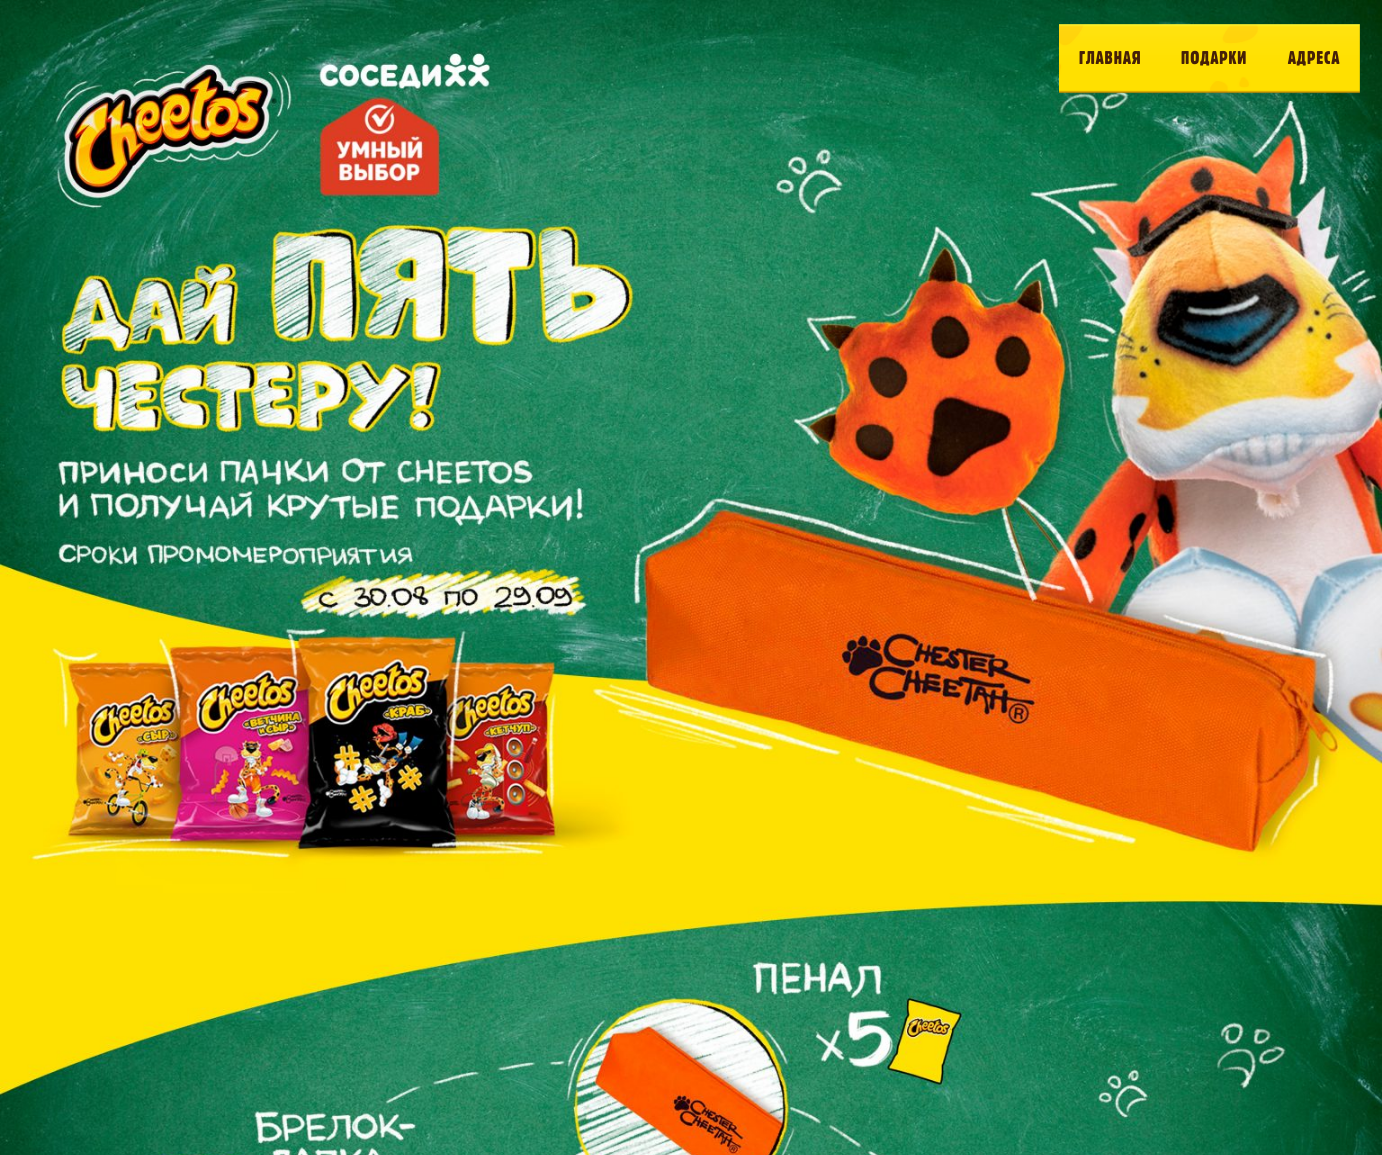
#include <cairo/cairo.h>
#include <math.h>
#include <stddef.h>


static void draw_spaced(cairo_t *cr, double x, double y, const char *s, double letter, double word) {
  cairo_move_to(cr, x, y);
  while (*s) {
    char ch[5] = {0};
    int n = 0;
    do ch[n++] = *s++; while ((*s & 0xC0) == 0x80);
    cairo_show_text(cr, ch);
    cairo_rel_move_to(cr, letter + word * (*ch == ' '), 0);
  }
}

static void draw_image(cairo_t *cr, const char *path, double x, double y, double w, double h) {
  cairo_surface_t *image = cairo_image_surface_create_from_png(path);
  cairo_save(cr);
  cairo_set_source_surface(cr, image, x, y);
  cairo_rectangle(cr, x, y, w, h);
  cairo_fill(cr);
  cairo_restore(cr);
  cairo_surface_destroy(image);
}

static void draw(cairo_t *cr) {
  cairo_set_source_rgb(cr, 1, 1, 1);
  cairo_paint(cr);
  draw_image(cr, "images/1.png", 0, 0, 1382, 893);
  draw_image(cr, "images/2.png", 0, 893, 1382, 262);
  draw_image(cr, "images/3.png", 1059, 24, 301, 70);
  cairo_select_font_face(cr, "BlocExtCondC", CAIRO_FONT_SLANT_NORMAL, CAIRO_FONT_WEIGHT_NORMAL);
  cairo_set_font_size(cr, 18);
  cairo_set_source_rgb(cr, 69 / 255.0, 32 / 255.0, 7 / 255.0);
  draw_spaced(cr, 1079, 64, "ГЛАВНАЯ", 1, 0);
  draw_spaced(cr, 1181, 64, "ПОДАРКИ", 1, 0);
  draw_spaced(cr, 1288, 64, "АДРЕСА", 1, 0);
}

int main(void) {
  cairo_surface_t *surface = cairo_image_surface_create(CAIRO_FORMAT_RGB24, 1382, 1155);
  cairo_t *cr = cairo_create(surface);
  cairo_font_options_t *options = cairo_font_options_create();
  cairo_font_options_set_hint_metrics(options, CAIRO_HINT_METRICS_OFF);
  cairo_font_options_set_hint_style(options, CAIRO_HINT_STYLE_NONE);
  cairo_set_font_options(cr, options);
  cairo_set_miter_limit(cr, 4);
  draw(cr);
  cairo_surface_write_to_png(surface, "out.png");
  cairo_font_options_destroy(options);
  cairo_destroy(cr);
  cairo_surface_destroy(surface);
  return 0;
}
